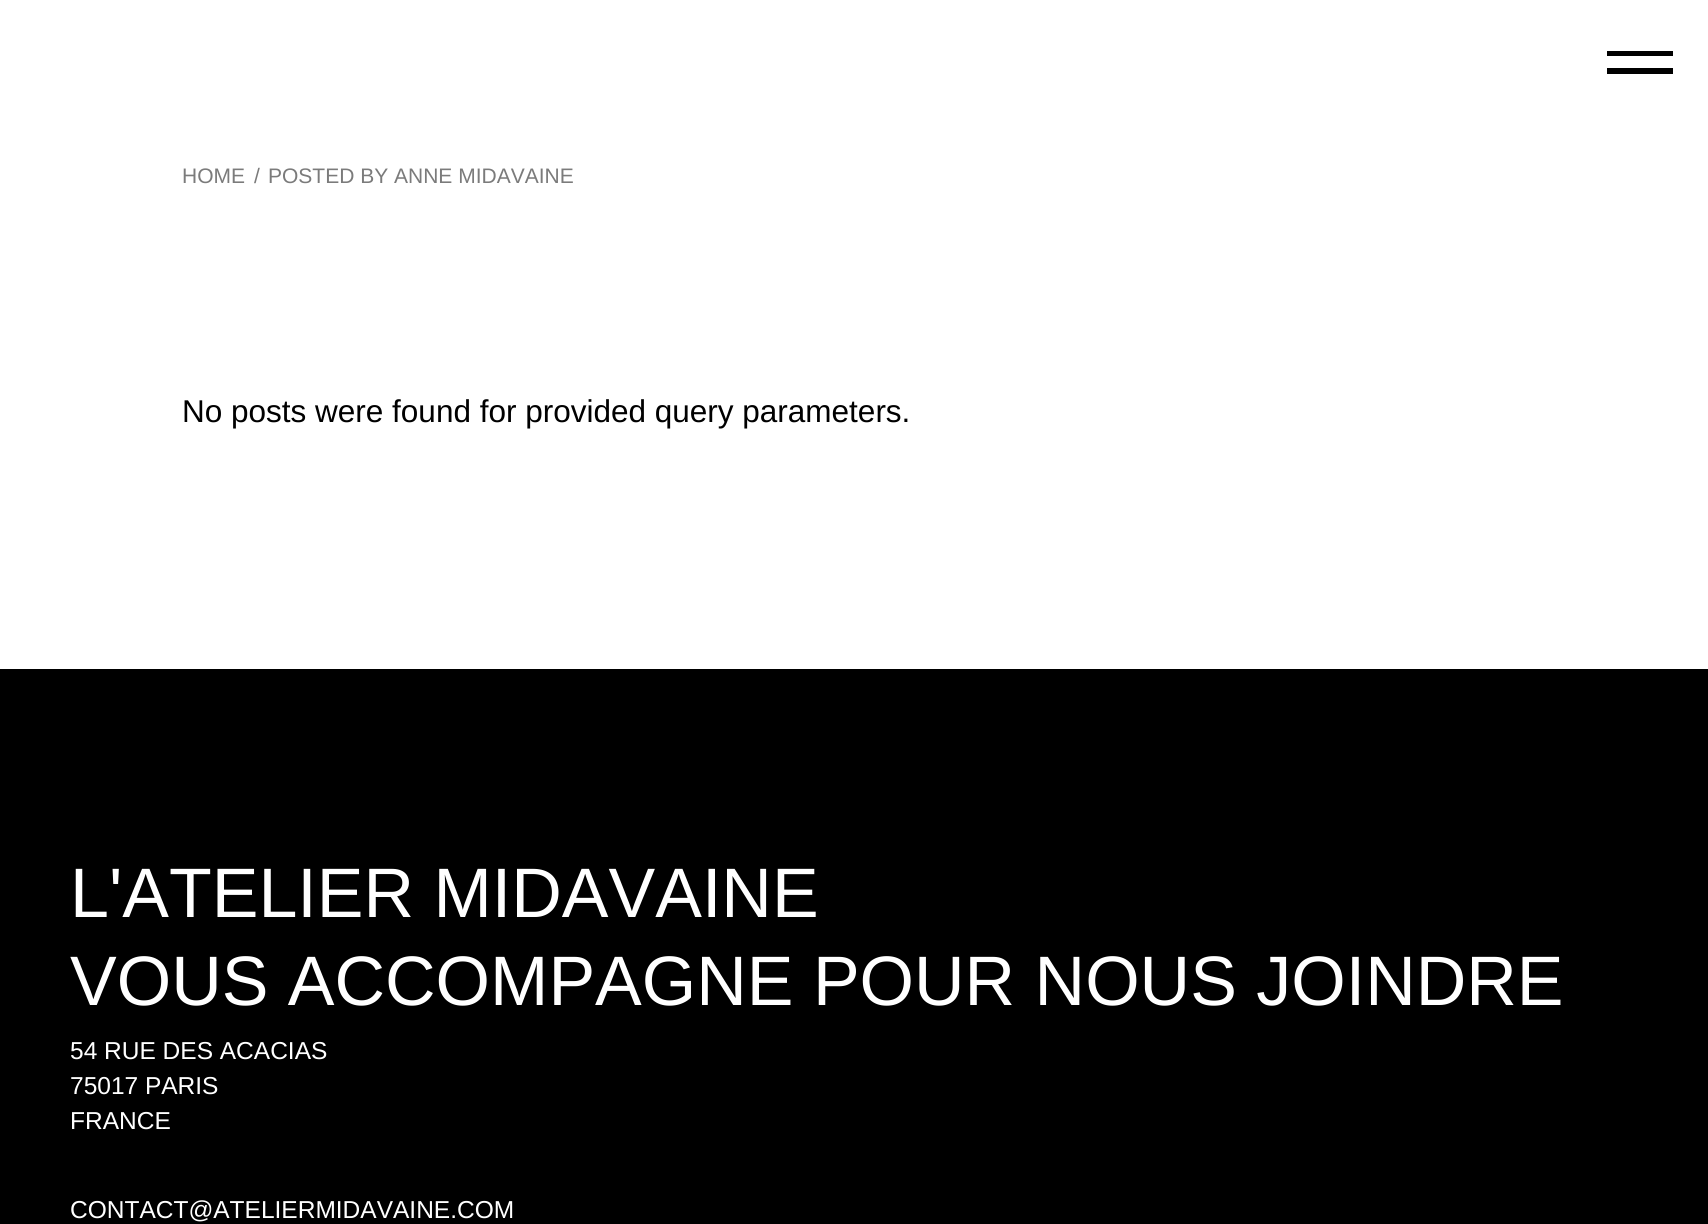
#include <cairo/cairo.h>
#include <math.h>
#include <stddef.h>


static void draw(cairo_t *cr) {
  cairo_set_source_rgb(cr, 1, 1, 1);
  cairo_paint(cr);
  cairo_set_source_rgb(cr, 0, 0, 0);
  cairo_rectangle(cr, 1607, 51, 66, 5);
  cairo_fill(cr);
  cairo_rectangle(cr, 1607, 68, 66, 6);
  cairo_fill(cr);
  cairo_rectangle(cr, 0, 669, 1708, 555);
  cairo_fill(cr);
  cairo_select_font_face(cr, "Arimo", CAIRO_FONT_SLANT_NORMAL, CAIRO_FONT_WEIGHT_NORMAL);
  cairo_set_font_size(cr, 21);
  cairo_set_source_rgb(cr, 123 / 255.0, 123 / 255.0, 123 / 255.0);
  cairo_move_to(cr, 182, 183);
  cairo_show_text(cr, "HOME");
  cairo_move_to(cr, 254, 183);
  cairo_show_text(cr, "/");
  cairo_move_to(cr, 268, 183);
  cairo_show_text(cr, "POSTED BY ANNE MIDAVAINE");
  cairo_set_font_size(cr, 31.5);
  cairo_set_source_rgb(cr, 0, 0, 0);
  cairo_move_to(cr, 182, 422);
  cairo_show_text(cr, "No posts were found for provided query parameters.");
  cairo_set_font_size(cr, 70);
  cairo_set_source_rgb(cr, 1, 1, 1);
  cairo_move_to(cr, 70, 917);
  cairo_show_text(cr, "L'ATELIER MIDAVAINE");
  cairo_move_to(cr, 70, 1005);
  cairo_show_text(cr, "VOUS ACCOMPAGNE POUR NOUS JOINDRE");
  cairo_set_font_size(cr, 24.5);
  cairo_move_to(cr, 70, 1059);
  cairo_show_text(cr, "54 RUE DES ACACIAS");
  cairo_move_to(cr, 70, 1094);
  cairo_show_text(cr, "75017 PARIS");
  cairo_move_to(cr, 70, 1129);
  cairo_show_text(cr, "FRANCE");
  cairo_move_to(cr, 70, 1218);
  cairo_show_text(cr, "CONTACT@ATELIERMIDAVAINE.COM");
}

int main(void) {
  cairo_surface_t *surface = cairo_image_surface_create(CAIRO_FORMAT_RGB24, 1708, 1224);
  cairo_t *cr = cairo_create(surface);
  cairo_font_options_t *options = cairo_font_options_create();
  cairo_font_options_set_hint_metrics(options, CAIRO_HINT_METRICS_OFF);
  cairo_font_options_set_hint_style(options, CAIRO_HINT_STYLE_NONE);
  cairo_set_font_options(cr, options);
  cairo_set_miter_limit(cr, 4);
  draw(cr);
  cairo_surface_write_to_png(surface, "out.png");
  cairo_font_options_destroy(options);
  cairo_destroy(cr);
  cairo_surface_destroy(surface);
  return 0;
}
